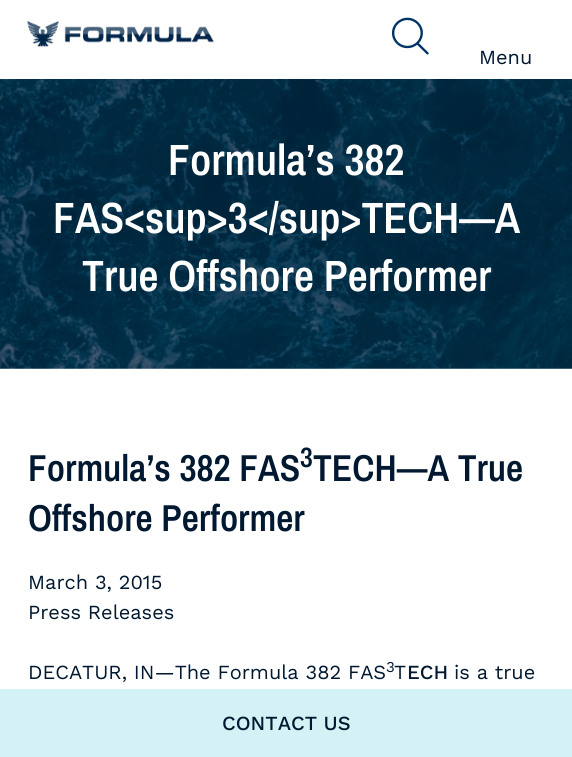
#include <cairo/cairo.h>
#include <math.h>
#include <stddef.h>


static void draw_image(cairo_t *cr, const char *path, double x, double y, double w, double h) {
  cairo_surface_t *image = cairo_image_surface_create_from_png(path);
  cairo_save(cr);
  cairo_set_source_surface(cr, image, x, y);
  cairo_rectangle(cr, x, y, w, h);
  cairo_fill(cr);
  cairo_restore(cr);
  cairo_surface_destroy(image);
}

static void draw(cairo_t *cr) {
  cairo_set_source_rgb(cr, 1, 1, 1);
  cairo_paint(cr);
  draw_image(cr, "images/1.png", 27, 21, 187, 26);
  draw_image(cr, "images/2.png", 391, 17, 38, 38);
  cairo_set_source_rgb(cr, 212 / 255.0, 241 / 255.0, 245 / 255.0);
  cairo_rectangle(cr, 0, 689, 572, 68);
  cairo_fill(cr);
  draw_image(cr, "images/3.png", 0, 79, 572, 290);
  cairo_select_font_face(cr, "Work Sans", CAIRO_FONT_SLANT_NORMAL, CAIRO_FONT_WEIGHT_NORMAL);
  cairo_set_font_size(cr, 20);
  cairo_set_source_rgb(cr, 0, 24 / 255.0, 48 / 255.0);
  cairo_move_to(cr, 479, 64);
  cairo_show_text(cr, "Menu");
  cairo_select_font_face(cr, "Work Sans Medium", CAIRO_FONT_SLANT_NORMAL, CAIRO_FONT_WEIGHT_NORMAL);
  cairo_move_to(cr, 222, 730);
  cairo_show_text(cr, "CONTACT US");
  cairo_select_font_face(cr, "Archivo Narrow SemiBold", CAIRO_FONT_SLANT_NORMAL, CAIRO_FONT_WEIGHT_NORMAL);
  cairo_set_font_size(cr, 43.75);
  cairo_set_source_rgb(cr, 1, 1, 1);
  cairo_move_to(cr, 168, 175);
  cairo_show_text(cr, "Formula’s 382");
  cairo_move_to(cr, 53, 233);
  cairo_show_text(cr, "FAS<sup>3</sup>TECH—A");
  cairo_move_to(cr, 82, 291);
  cairo_show_text(cr, "True Offshore Performer");
  cairo_set_font_size(cr, 37.5);
  cairo_set_source_rgb(cr, 0, 24 / 255.0, 48 / 255.0);
  cairo_move_to(cr, 28, 481);
  cairo_show_text(cr, "Formula’s 382 FAS");
  cairo_set_font_size(cr, 28);
  cairo_move_to(cr, 300, 467);
  cairo_show_text(cr, "3");
  cairo_set_font_size(cr, 37.5);
  cairo_move_to(cr, 313, 481);
  cairo_show_text(cr, "TECH—A True");
  cairo_move_to(cr, 28, 531);
  cairo_show_text(cr, "Offshore Performer");
  cairo_select_font_face(cr, "Work Sans", CAIRO_FONT_SLANT_NORMAL, CAIRO_FONT_WEIGHT_NORMAL);
  cairo_set_font_size(cr, 20);
  cairo_move_to(cr, 28, 589);
  cairo_show_text(cr, "March 3, 2015");
  cairo_move_to(cr, 28, 619);
  cairo_show_text(cr, "Press Releases");
  cairo_move_to(cr, 28, 679);
  cairo_show_text(cr, "DECATUR, IN—The Formula 382 FAS");
  cairo_set_font_size(cr, 15);
  cairo_move_to(cr, 386, 672);
  cairo_show_text(cr, "3");
  cairo_set_font_size(cr, 20);
  cairo_move_to(cr, 394, 679);
  cairo_show_text(cr, "T");
  cairo_select_font_face(cr, "Work Sans Medium", CAIRO_FONT_SLANT_NORMAL, CAIRO_FONT_WEIGHT_NORMAL);
  cairo_move_to(cr, 407, 679);
  cairo_show_text(cr, "ECH");
  cairo_select_font_face(cr, "Work Sans", CAIRO_FONT_SLANT_NORMAL, CAIRO_FONT_WEIGHT_NORMAL);
  cairo_move_to(cr, 454, 679);
  cairo_show_text(cr, "is a true");
}

int main(void) {
  cairo_surface_t *surface = cairo_image_surface_create(CAIRO_FORMAT_RGB24, 572, 757);
  cairo_t *cr = cairo_create(surface);
  cairo_font_options_t *options = cairo_font_options_create();
  cairo_font_options_set_hint_metrics(options, CAIRO_HINT_METRICS_OFF);
  cairo_font_options_set_hint_style(options, CAIRO_HINT_STYLE_NONE);
  cairo_set_font_options(cr, options);
  cairo_set_miter_limit(cr, 4);
  draw(cr);
  cairo_surface_write_to_png(surface, "out.png");
  cairo_font_options_destroy(options);
  cairo_destroy(cr);
  cairo_surface_destroy(surface);
  return 0;
}
